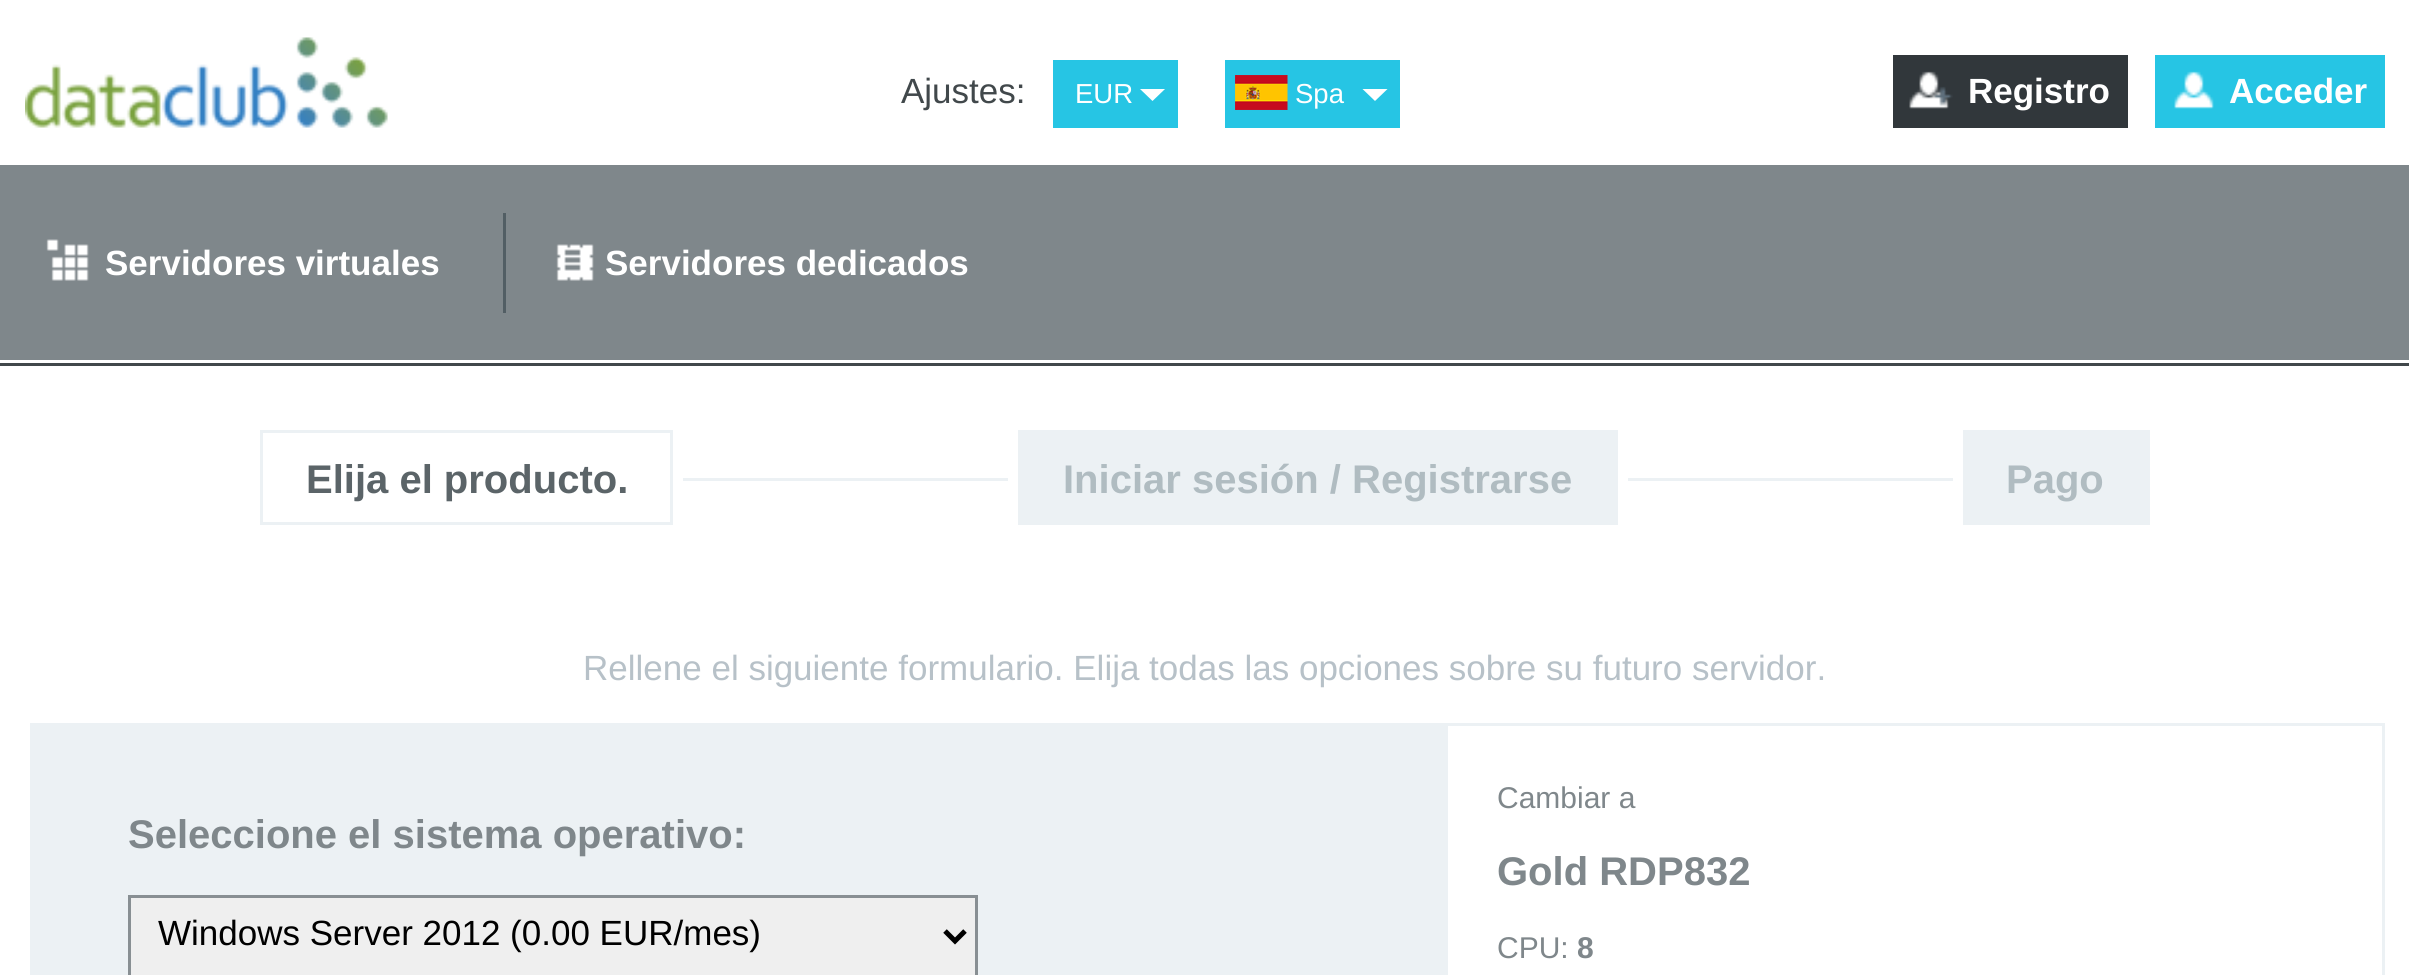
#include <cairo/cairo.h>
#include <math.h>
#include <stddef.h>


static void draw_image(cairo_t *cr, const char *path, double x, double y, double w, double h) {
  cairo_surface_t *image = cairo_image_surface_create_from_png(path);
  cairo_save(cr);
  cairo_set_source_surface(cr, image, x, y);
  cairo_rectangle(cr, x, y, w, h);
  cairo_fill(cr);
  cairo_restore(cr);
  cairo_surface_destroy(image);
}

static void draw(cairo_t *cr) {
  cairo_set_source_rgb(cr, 1, 1, 1);
  cairo_paint(cr);
  draw_image(cr, "images/1.png", 25, 37, 363, 91);
  cairo_set_source_rgb(cr, 38 / 255.0, 197 / 255.0, 228 / 255.0);
  cairo_rectangle(cr, 1053, 60, 125, 68);
  cairo_fill(cr);
  cairo_set_source_rgb(cr, 1, 1, 1);
  cairo_new_path(cr);
  cairo_move_to(cr, 1140, 89);
  cairo_line_to(cr, 1165, 89);
  cairo_line_to(cr, 1152.5, 101);
  cairo_close_path(cr);
  cairo_fill(cr);
  cairo_set_source_rgb(cr, 38 / 255.0, 197 / 255.0, 228 / 255.0);
  cairo_rectangle(cr, 1225, 60, 175, 68);
  cairo_fill(cr);
  draw_image(cr, "images/2.png", 1235, 75, 53, 35);
  cairo_set_source_rgb(cr, 1, 1, 1);
  cairo_new_path(cr);
  cairo_move_to(cr, 1362.5, 89);
  cairo_line_to(cr, 1387.5, 89);
  cairo_line_to(cr, 1375, 101);
  cairo_close_path(cr);
  cairo_fill(cr);
  cairo_set_source_rgb(cr, 49 / 255.0, 55 / 255.0, 59 / 255.0);
  cairo_rectangle(cr, 1893, 55, 235, 73);
  cairo_fill(cr);
  draw_image(cr, "images/3.png", 1909, 71, 44, 38);
  cairo_set_source_rgb(cr, 38 / 255.0, 197 / 255.0, 228 / 255.0);
  cairo_rectangle(cr, 2155, 55, 230, 73);
  cairo_fill(cr);
  draw_image(cr, "images/4.png", 2174, 71, 40, 38);
  cairo_set_source_rgb(cr, 127 / 255.0, 135 / 255.0, 139 / 255.0);
  cairo_rectangle(cr, 0, 165, 2409, 195);
  cairo_fill(cr);
  draw_image(cr, "images/5.png", 46, 239, 43, 42);
  draw_image(cr, "images/6.png", 556, 244, 38, 37);
  cairo_set_source_rgb(cr, 82 / 255.0, 94 / 255.0, 100 / 255.0);
  cairo_rectangle(cr, 503, 213, 3, 100);
  cairo_fill(cr);
  cairo_set_source_rgb(cr, 65 / 255.0, 72 / 255.0, 75 / 255.0);
  cairo_rectangle(cr, 0, 363, 2409, 3);
  cairo_fill(cr);
  cairo_rectangle(cr, 261.5, 431.5, 410, 92);
  cairo_set_source_rgb(cr, 236 / 255.0, 241 / 255.0, 244 / 255.0);
  cairo_set_line_width(cr, 3);
  cairo_stroke(cr);
  cairo_rectangle(cr, 683, 478, 325, 3);
  cairo_fill(cr);
  cairo_rectangle(cr, 1018, 430, 600, 95);
  cairo_fill(cr);
  cairo_rectangle(cr, 1628, 478, 325, 3);
  cairo_fill(cr);
  cairo_rectangle(cr, 1963, 430, 187, 95);
  cairo_fill(cr);
  cairo_rectangle(cr, 30, 723, 1415, 252);
  cairo_fill(cr);
  cairo_set_source_rgb(cr, 239 / 255.0, 239 / 255.0, 239 / 255.0);
  cairo_rectangle(cr, 129.5, 896.5, 847, 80);
  cairo_fill_preserve(cr);
  cairo_set_source_rgb(cr, 136 / 255.0, 143 / 255.0, 147 / 255.0);
  cairo_stroke(cr);
  cairo_new_path(cr);
  cairo_move_to(cr, 945, 931);
  cairo_line_to(cr, 955, 941);
  cairo_line_to(cr, 965, 931);
  cairo_set_source_rgb(cr, 0, 0, 0);
  cairo_set_line_width(cr, 5);
  cairo_stroke(cr);
  cairo_rectangle(cr, 1446.5, 724.5, 937, 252);
  cairo_set_source_rgb(cr, 236 / 255.0, 241 / 255.0, 244 / 255.0);
  cairo_set_line_width(cr, 3);
  cairo_stroke(cr);
  cairo_select_font_face(cr, "Liberation Sans", CAIRO_FONT_SLANT_NORMAL, CAIRO_FONT_WEIGHT_NORMAL);
  cairo_set_font_size(cr, 35);
  cairo_set_source_rgb(cr, 65 / 255.0, 72 / 255.0, 75 / 255.0);
  cairo_move_to(cr, 901, 103);
  cairo_show_text(cr, "Ajustes:");
  cairo_set_font_size(cr, 27.5);
  cairo_set_source_rgb(cr, 1, 1, 1);
  cairo_move_to(cr, 1075, 103);
  cairo_show_text(cr, "EUR");
  cairo_move_to(cr, 1295, 103);
  cairo_show_text(cr, "Spa");
  cairo_select_font_face(cr, "Liberation Sans", CAIRO_FONT_SLANT_NORMAL, CAIRO_FONT_WEIGHT_BOLD);
  cairo_set_font_size(cr, 35);
  cairo_move_to(cr, 1968, 103);
  cairo_show_text(cr, "Registro");
  cairo_move_to(cr, 2229, 103);
  cairo_show_text(cr, "Acceder");
  cairo_move_to(cr, 105, 275);
  cairo_show_text(cr, "Servidores virtuales");
  cairo_move_to(cr, 605, 275);
  cairo_show_text(cr, "Servidores dedicados");
  cairo_set_font_size(cr, 40);
  cairo_set_source_rgb(cr, 91 / 255.0, 100 / 255.0, 104 / 255.0);
  cairo_move_to(cr, 306, 493);
  cairo_show_text(cr, "Elija el producto.");
  cairo_set_source_rgb(cr, 176 / 255.0, 188 / 255.0, 193 / 255.0);
  cairo_move_to(cr, 1063, 493);
  cairo_show_text(cr, "Iniciar sesión / Registrarse");
  cairo_move_to(cr, 2006, 493);
  cairo_show_text(cr, "Pago");
  cairo_select_font_face(cr, "Liberation Sans", CAIRO_FONT_SLANT_NORMAL, CAIRO_FONT_WEIGHT_NORMAL);
  cairo_set_font_size(cr, 35);
  cairo_set_source_rgb(cr, 183 / 255.0, 193 / 255.0, 200 / 255.0);
  cairo_move_to(cr, 583, 680);
  cairo_show_text(cr, "Rellene el siguiente formulario. Elija todas las opciones sobre su futuro servidor.");
  cairo_select_font_face(cr, "Liberation Sans", CAIRO_FONT_SLANT_NORMAL, CAIRO_FONT_WEIGHT_BOLD);
  cairo_set_font_size(cr, 40);
  cairo_set_source_rgb(cr, 127 / 255.0, 135 / 255.0, 139 / 255.0);
  cairo_move_to(cr, 128, 848);
  cairo_show_text(cr, "Seleccione el sistema operativo:");
  cairo_select_font_face(cr, "Liberation Sans", CAIRO_FONT_SLANT_NORMAL, CAIRO_FONT_WEIGHT_NORMAL);
  cairo_set_font_size(cr, 35);
  cairo_set_source_rgb(cr, 0, 0, 0);
  cairo_move_to(cr, 158, 945);
  cairo_show_text(cr, "Windows Server 2012 (0.00 EUR/mes)");
  cairo_set_font_size(cr, 30);
  cairo_set_source_rgb(cr, 127 / 255.0, 135 / 255.0, 139 / 255.0);
  cairo_move_to(cr, 1497, 808);
  cairo_show_text(cr, "Cambiar a");
  cairo_select_font_face(cr, "Liberation Sans", CAIRO_FONT_SLANT_NORMAL, CAIRO_FONT_WEIGHT_BOLD);
  cairo_set_font_size(cr, 40);
  cairo_move_to(cr, 1497, 885);
  cairo_show_text(cr, "Gold RDP832");
  cairo_select_font_face(cr, "Liberation Sans", CAIRO_FONT_SLANT_NORMAL, CAIRO_FONT_WEIGHT_NORMAL);
  cairo_set_font_size(cr, 30);
  cairo_move_to(cr, 1497, 958);
  cairo_show_text(cr, "CPU:");
  cairo_select_font_face(cr, "Liberation Sans", CAIRO_FONT_SLANT_NORMAL, CAIRO_FONT_WEIGHT_BOLD);
  cairo_move_to(cr, 1577, 958);
  cairo_show_text(cr, "8");
}

int main(void) {
  cairo_surface_t *surface = cairo_image_surface_create(CAIRO_FORMAT_RGB24, 2409, 975);
  cairo_t *cr = cairo_create(surface);
  cairo_font_options_t *options = cairo_font_options_create();
  cairo_font_options_set_hint_metrics(options, CAIRO_HINT_METRICS_OFF);
  cairo_font_options_set_hint_style(options, CAIRO_HINT_STYLE_NONE);
  cairo_set_font_options(cr, options);
  cairo_set_miter_limit(cr, 4);
  draw(cr);
  cairo_surface_write_to_png(surface, "out.png");
  cairo_font_options_destroy(options);
  cairo_destroy(cr);
  cairo_surface_destroy(surface);
  return 0;
}
